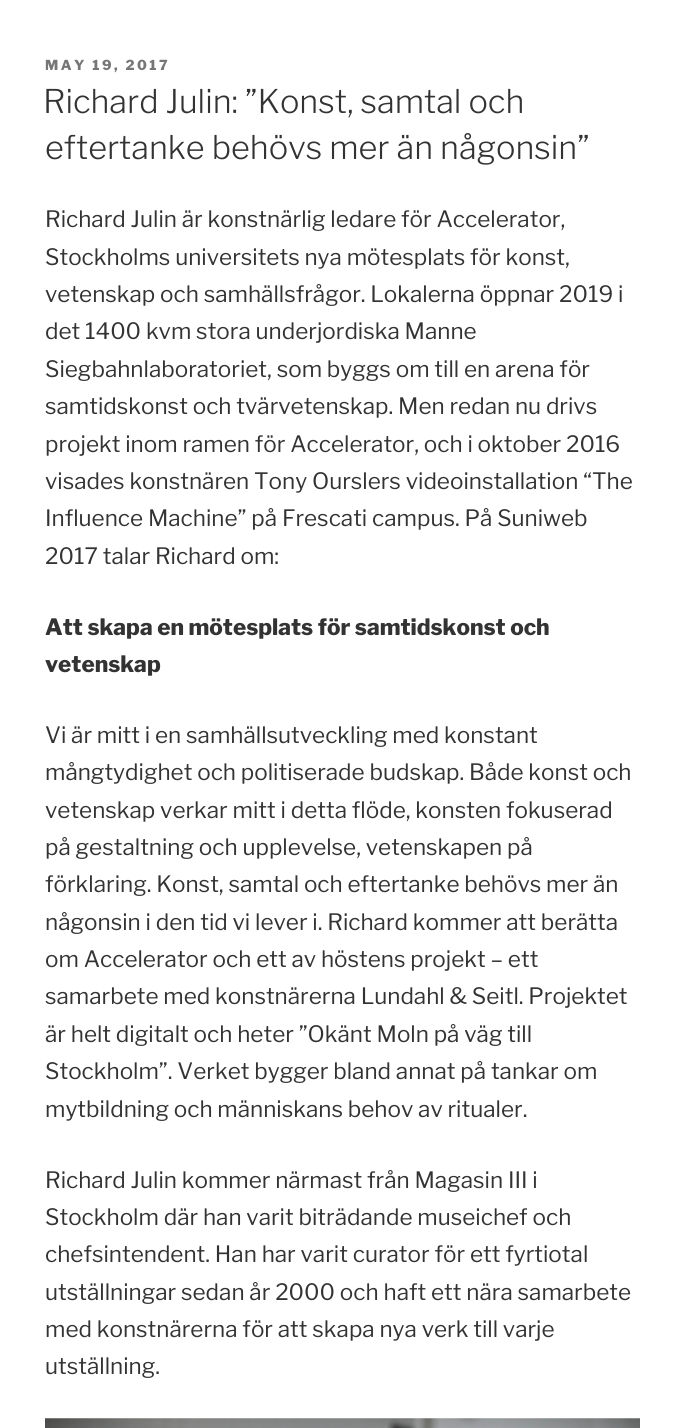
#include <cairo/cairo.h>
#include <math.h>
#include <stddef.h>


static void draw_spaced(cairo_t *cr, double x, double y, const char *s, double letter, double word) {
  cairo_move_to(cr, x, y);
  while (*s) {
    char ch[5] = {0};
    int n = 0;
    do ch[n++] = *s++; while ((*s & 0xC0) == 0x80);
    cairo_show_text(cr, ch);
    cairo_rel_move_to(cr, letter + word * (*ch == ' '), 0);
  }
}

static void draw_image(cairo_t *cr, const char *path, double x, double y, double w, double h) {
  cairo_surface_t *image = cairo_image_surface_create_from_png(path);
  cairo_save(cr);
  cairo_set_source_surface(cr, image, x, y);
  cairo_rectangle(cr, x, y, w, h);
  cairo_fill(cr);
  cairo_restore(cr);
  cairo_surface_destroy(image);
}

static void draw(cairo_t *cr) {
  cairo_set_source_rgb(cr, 1, 1, 1);
  cairo_paint(cr);
  draw_image(cr, "images/1.png", 45, 1418, 595, 10);
  cairo_select_font_face(cr, "Libre Franklin Thin", CAIRO_FONT_SLANT_NORMAL, CAIRO_FONT_WEIGHT_NORMAL);
  cairo_set_font_size(cr, 13.75);
  cairo_set_source_rgb(cr, 118 / 255.0, 118 / 255.0, 118 / 255.0);
  draw_spaced(cr, 45, 70, "MAY 19, 2017", 2.5, 0);
  cairo_select_font_face(cr, "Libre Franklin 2 Thin", CAIRO_FONT_SLANT_NORMAL, CAIRO_FONT_WEIGHT_NORMAL);
  cairo_set_font_size(cr, 32.5);
  cairo_set_source_rgb(cr, 51 / 255.0, 51 / 255.0, 51 / 255.0);
  cairo_move_to(cr, 43, 113);
  cairo_show_text(cr, "Richard Julin: ”Konst, samtal och");
  cairo_move_to(cr, 45, 159);
  cairo_show_text(cr, "eftertanke behövs mer än någonsin”");
  cairo_select_font_face(cr, "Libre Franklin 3 Thin", CAIRO_FONT_SLANT_NORMAL, CAIRO_FONT_WEIGHT_NORMAL);
  cairo_set_font_size(cr, 22.5);
  cairo_move_to(cr, 45, 227);
  cairo_show_text(cr, "Richard Julin är konstnärlig ledare för Accelerator,");
  cairo_move_to(cr, 45, 265);
  cairo_show_text(cr, "Stockholms universitets nya mötesplats för konst,");
  cairo_move_to(cr, 45, 302);
  cairo_show_text(cr, "vetenskap och samhällsfrågor. Lokalerna öppnar 2019 i");
  cairo_move_to(cr, 45, 339);
  cairo_show_text(cr, "det 1400 kvm stora underjordiska Manne");
  cairo_move_to(cr, 45, 377);
  cairo_show_text(cr, "Siegbahnlaboratoriet, som byggs om till en arena för");
  cairo_move_to(cr, 45, 414);
  cairo_show_text(cr, "samtidskonst och tvärvetenskap. Men redan nu drivs");
  cairo_move_to(cr, 45, 452);
  cairo_show_text(cr, "projekt inom ramen för Accelerator, och i oktober 2016");
  cairo_move_to(cr, 45, 489);
  cairo_show_text(cr, "visades konstnären Tony Ourslers videoinstallation “The");
  cairo_move_to(cr, 45, 526);
  cairo_show_text(cr, "Influence Machine” på Frescati campus. På Suniweb");
  cairo_move_to(cr, 45, 564);
  cairo_show_text(cr, "2017 talar Richard om:");
  cairo_select_font_face(cr, "Libre Franklin Thin", CAIRO_FONT_SLANT_NORMAL, CAIRO_FONT_WEIGHT_NORMAL);
  cairo_move_to(cr, 45, 635);
  cairo_show_text(cr, "Att skapa en mötesplats för samtidskonst och");
  cairo_move_to(cr, 45, 672);
  cairo_show_text(cr, "vetenskap");
  cairo_select_font_face(cr, "Libre Franklin 3 Thin", CAIRO_FONT_SLANT_NORMAL, CAIRO_FONT_WEIGHT_NORMAL);
  cairo_move_to(cr, 45, 743);
  cairo_show_text(cr, "Vi är mitt i en samhällsutveckling med konstant");
  cairo_move_to(cr, 45, 780);
  cairo_show_text(cr, "mångtydighet och politiserade budskap. Både konst och");
  cairo_move_to(cr, 45, 818);
  cairo_show_text(cr, "vetenskap verkar mitt i detta flöde, konsten fokuserad");
  cairo_move_to(cr, 45, 855);
  cairo_show_text(cr, "på gestaltning och upplevelse, vetenskapen på");
  cairo_move_to(cr, 45, 892);
  cairo_show_text(cr, "förklaring. Konst, samtal och eftertanke behövs mer än");
  cairo_move_to(cr, 45, 930);
  cairo_show_text(cr, "någonsin i den tid vi lever i. Richard kommer att berätta");
  cairo_move_to(cr, 45, 967);
  cairo_show_text(cr, "om Accelerator och ett av höstens projekt – ett");
  cairo_move_to(cr, 45, 1004);
  cairo_show_text(cr, "samarbete med konstnärerna Lundahl & Seitl. Projektet");
  cairo_move_to(cr, 45, 1042);
  cairo_show_text(cr, "är helt digitalt och heter ”Okänt Moln på väg till");
  cairo_move_to(cr, 45, 1079);
  cairo_show_text(cr, "Stockholm”. Verket bygger bland annat på tankar om");
  cairo_move_to(cr, 45, 1117);
  cairo_show_text(cr, "mytbildning och människans behov av ritualer.");
  cairo_move_to(cr, 45, 1188);
  cairo_show_text(cr, "Richard Julin kommer närmast från Magasin III i");
  cairo_move_to(cr, 45, 1225);
  cairo_show_text(cr, "Stockholm där han varit biträdande museichef och");
  cairo_move_to(cr, 45, 1262);
  cairo_show_text(cr, "chefsintendent. Han har varit curator för ett fyrtiotal");
  cairo_move_to(cr, 45, 1300);
  cairo_show_text(cr, "utställningar sedan år 2000 och haft ett nära samarbete");
  cairo_move_to(cr, 45, 1337);
  cairo_show_text(cr, "med konstnärerna för att skapa nya verk till varje");
  cairo_move_to(cr, 45, 1374);
  cairo_show_text(cr, "utställning.");
}

int main(void) {
  cairo_surface_t *surface = cairo_image_surface_create(CAIRO_FORMAT_RGB24, 684, 1428);
  cairo_t *cr = cairo_create(surface);
  cairo_font_options_t *options = cairo_font_options_create();
  cairo_font_options_set_hint_metrics(options, CAIRO_HINT_METRICS_OFF);
  cairo_font_options_set_hint_style(options, CAIRO_HINT_STYLE_NONE);
  cairo_set_font_options(cr, options);
  cairo_set_miter_limit(cr, 4);
  draw(cr);
  cairo_surface_write_to_png(surface, "out.png");
  cairo_font_options_destroy(options);
  cairo_destroy(cr);
  cairo_surface_destroy(surface);
  return 0;
}
